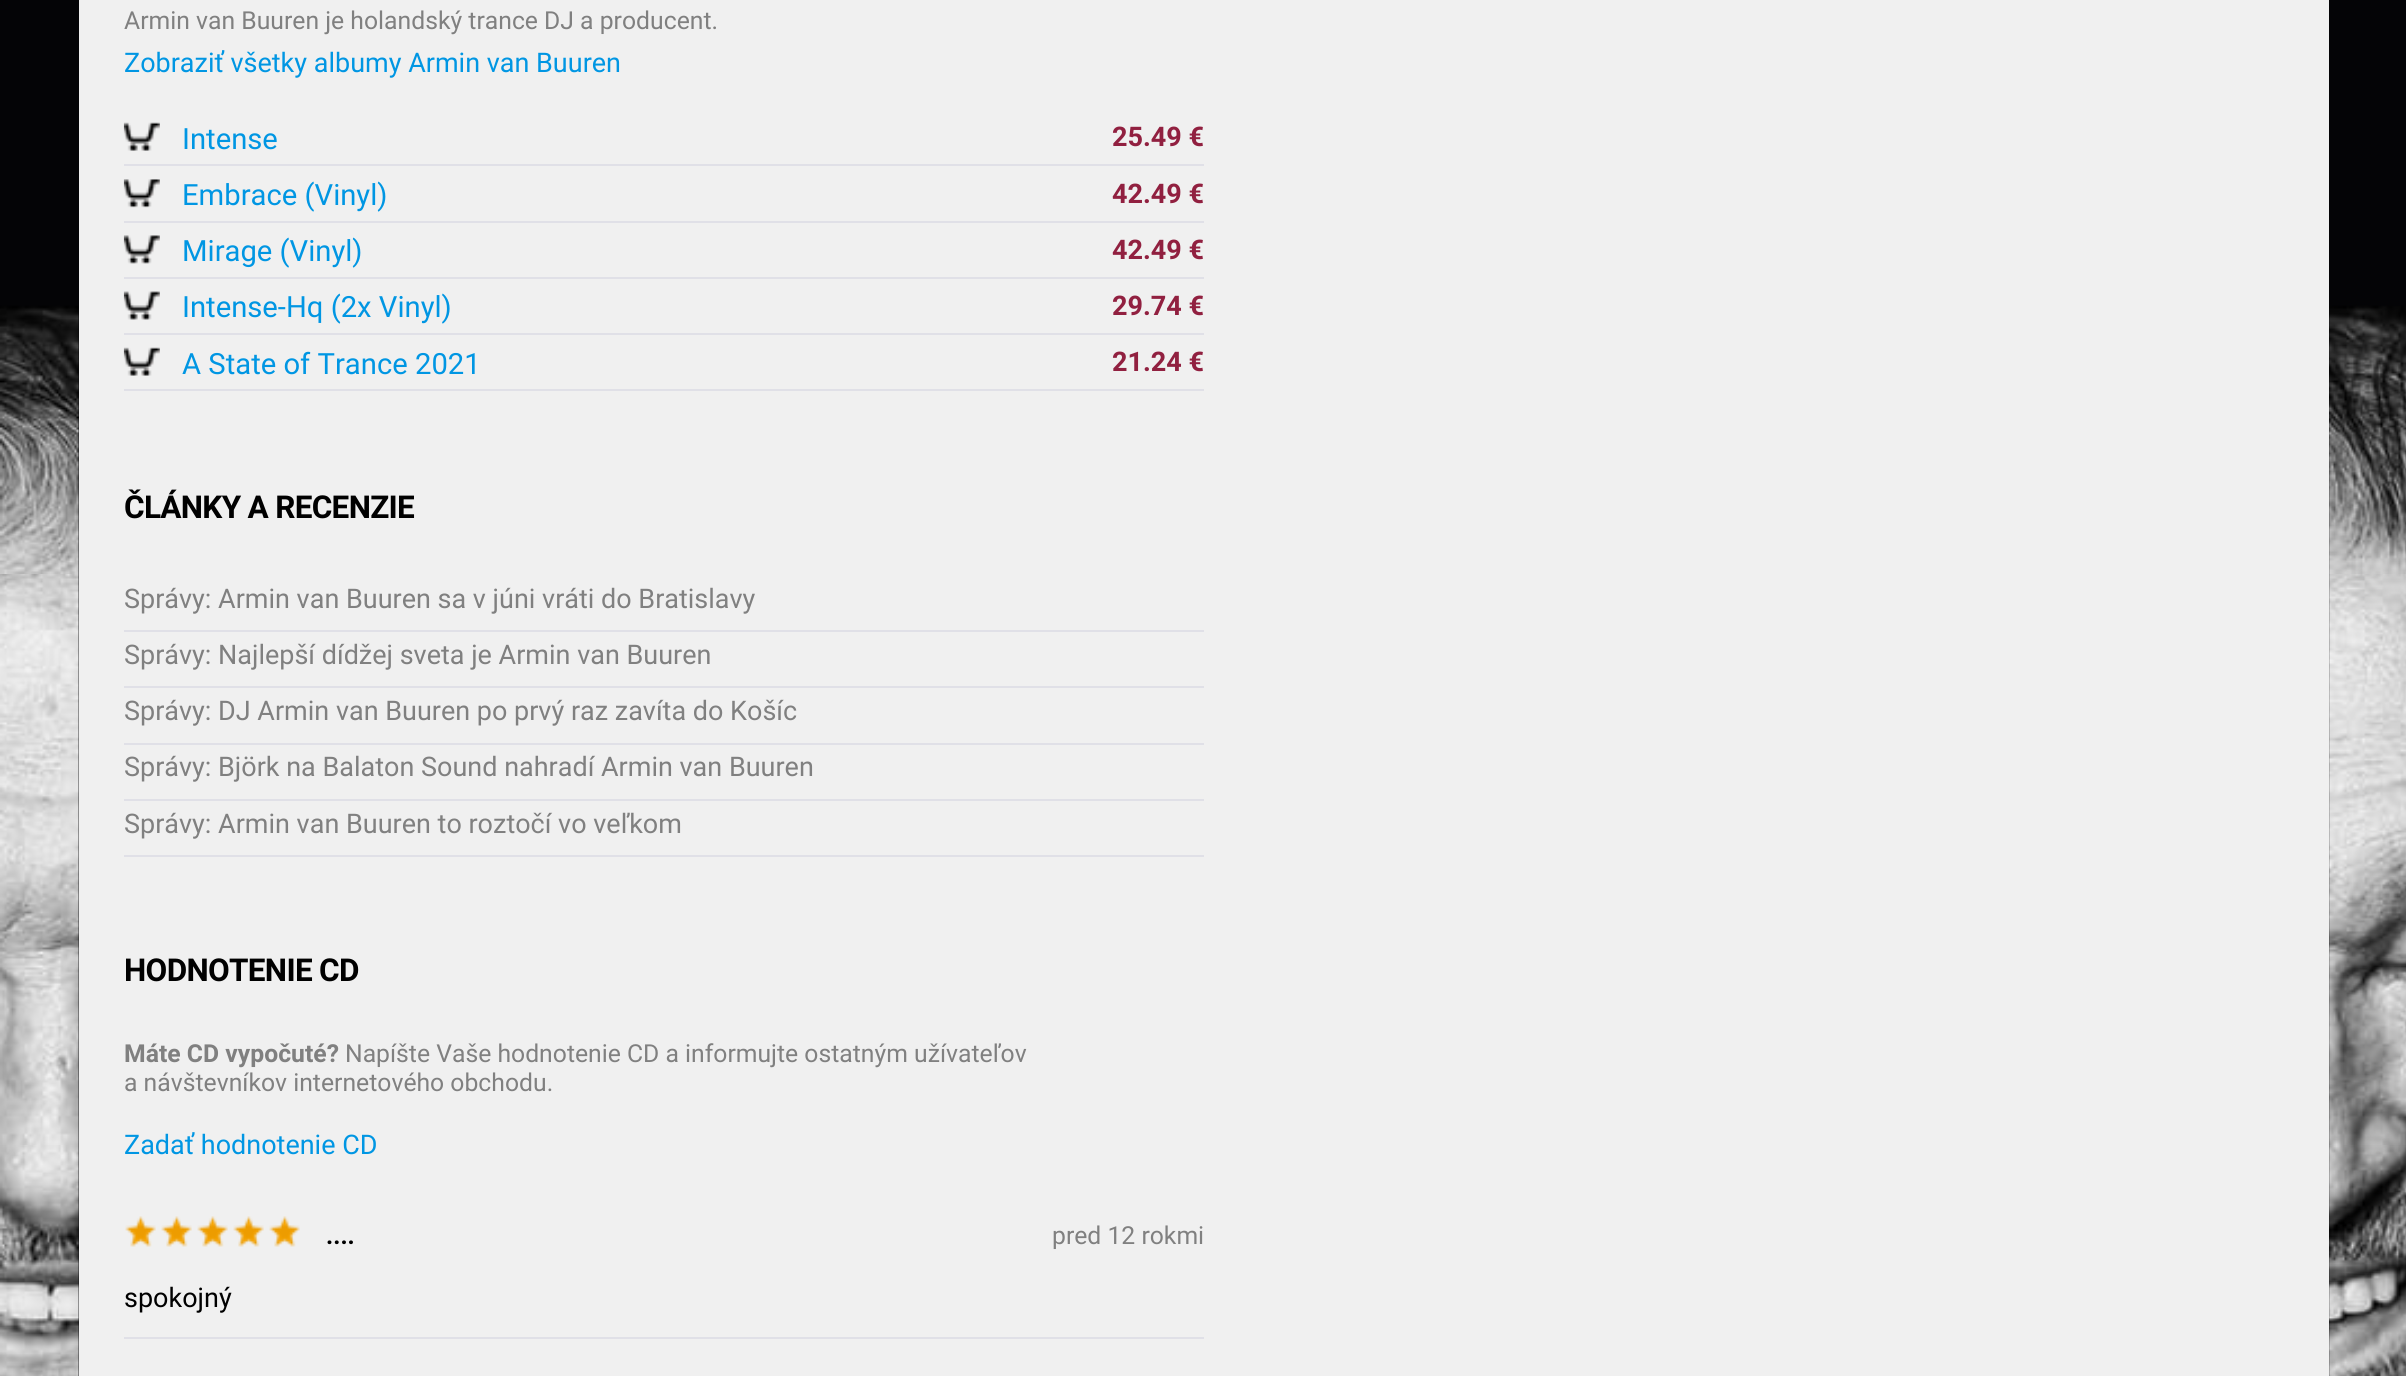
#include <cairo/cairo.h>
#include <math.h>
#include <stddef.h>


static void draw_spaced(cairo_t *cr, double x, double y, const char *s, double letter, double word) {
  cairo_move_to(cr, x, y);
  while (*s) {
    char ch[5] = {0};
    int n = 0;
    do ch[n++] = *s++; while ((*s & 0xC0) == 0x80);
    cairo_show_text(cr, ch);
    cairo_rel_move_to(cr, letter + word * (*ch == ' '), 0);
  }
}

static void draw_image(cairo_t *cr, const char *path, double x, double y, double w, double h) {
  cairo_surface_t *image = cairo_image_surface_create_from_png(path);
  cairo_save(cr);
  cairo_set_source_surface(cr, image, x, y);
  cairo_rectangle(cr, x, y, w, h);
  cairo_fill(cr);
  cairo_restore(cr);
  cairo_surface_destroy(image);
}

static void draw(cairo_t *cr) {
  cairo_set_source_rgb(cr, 1, 1, 1);
  cairo_paint(cr);
  draw_image(cr, "images/1.png", 0, 0, 2406, 1376);
  cairo_set_source_rgb(cr, 240 / 255.0, 240 / 255.0, 240 / 255.0);
  cairo_rectangle(cr, 79, 0, 2250, 1376);
  cairo_fill(cr);
  cairo_set_source_rgb(cr, 224 / 255.0, 224 / 255.0, 231 / 255.0);
  cairo_rectangle(cr, 124, 164, 1080, 2);
  cairo_fill(cr);
  draw_image(cr, "images/2.png", 123, 122, 37, 29);
  cairo_rectangle(cr, 124, 221, 1080, 2);
  cairo_fill(cr);
  draw_image(cr, "images/3.png", 123, 179, 37, 29);
  cairo_rectangle(cr, 124, 277, 1080, 2);
  cairo_fill(cr);
  draw_image(cr, "images/4.png", 123, 235, 37, 29);
  cairo_rectangle(cr, 124, 333, 1080, 2);
  cairo_fill(cr);
  draw_image(cr, "images/5.png", 123, 291, 37, 29);
  cairo_rectangle(cr, 124, 389, 1080, 2);
  cairo_fill(cr);
  draw_image(cr, "images/2.png", 123, 347, 37, 29);
  cairo_rectangle(cr, 124, 630, 1080, 2);
  cairo_fill(cr);
  cairo_rectangle(cr, 124, 686, 1080, 2);
  cairo_fill(cr);
  cairo_rectangle(cr, 124, 743, 1080, 2);
  cairo_fill(cr);
  cairo_rectangle(cr, 124, 799, 1080, 2);
  cairo_fill(cr);
  cairo_rectangle(cr, 124, 855, 1080, 2);
  cairo_fill(cr);
  draw_image(cr, "images/6.png", 125, 1216, 175, 31);
  cairo_rectangle(cr, 124, 1337, 1080, 2);
  cairo_fill(cr);
  cairo_select_font_face(cr, "Roboto", CAIRO_FONT_SLANT_NORMAL, CAIRO_FONT_WEIGHT_NORMAL);
  cairo_set_font_size(cr, 24.75);
  cairo_set_source_rgb(cr, 128 / 255.0, 128 / 255.0, 128 / 255.0);
  cairo_move_to(cr, 124, 29);
  cairo_show_text(cr, "Armin van Buuren je holandský trance DJ a producent.");
  cairo_set_font_size(cr, 27);
  cairo_set_source_rgb(cr, 0, 150 / 255.0, 227 / 255.0);
  cairo_move_to(cr, 124, 72);
  cairo_show_text(cr, "Zobraziť všetky albumy Armin van Buuren");
  cairo_set_font_size(cr, 29.25);
  cairo_move_to(cr, 182, 149);
  cairo_show_text(cr, "Intense");
  cairo_select_font_face(cr, "Roboto", CAIRO_FONT_SLANT_NORMAL, CAIRO_FONT_WEIGHT_BOLD);
  cairo_set_font_size(cr, 27);
  cairo_set_source_rgb(cr, 145 / 255.0, 32 / 255.0, 64 / 255.0);
  cairo_move_to(cr, 1112, 146);
  cairo_show_text(cr, "25.49 €");
  cairo_select_font_face(cr, "Roboto", CAIRO_FONT_SLANT_NORMAL, CAIRO_FONT_WEIGHT_NORMAL);
  cairo_set_font_size(cr, 29.25);
  cairo_set_source_rgb(cr, 0, 150 / 255.0, 227 / 255.0);
  cairo_move_to(cr, 182, 205);
  cairo_show_text(cr, "Embrace (Vinyl)");
  cairo_select_font_face(cr, "Roboto", CAIRO_FONT_SLANT_NORMAL, CAIRO_FONT_WEIGHT_BOLD);
  cairo_set_font_size(cr, 27);
  cairo_set_source_rgb(cr, 145 / 255.0, 32 / 255.0, 64 / 255.0);
  cairo_move_to(cr, 1112, 203);
  cairo_show_text(cr, "42.49 €");
  cairo_select_font_face(cr, "Roboto", CAIRO_FONT_SLANT_NORMAL, CAIRO_FONT_WEIGHT_NORMAL);
  cairo_set_font_size(cr, 29.25);
  cairo_set_source_rgb(cr, 0, 150 / 255.0, 227 / 255.0);
  cairo_move_to(cr, 182, 261);
  cairo_show_text(cr, "Mirage (Vinyl)");
  cairo_select_font_face(cr, "Roboto", CAIRO_FONT_SLANT_NORMAL, CAIRO_FONT_WEIGHT_BOLD);
  cairo_set_font_size(cr, 27);
  cairo_set_source_rgb(cr, 145 / 255.0, 32 / 255.0, 64 / 255.0);
  cairo_move_to(cr, 1112, 259);
  cairo_show_text(cr, "42.49 €");
  cairo_select_font_face(cr, "Roboto", CAIRO_FONT_SLANT_NORMAL, CAIRO_FONT_WEIGHT_NORMAL);
  cairo_set_font_size(cr, 29.25);
  cairo_set_source_rgb(cr, 0, 150 / 255.0, 227 / 255.0);
  cairo_move_to(cr, 182, 317);
  cairo_show_text(cr, "Intense-Hq (2x Vinyl)");
  cairo_select_font_face(cr, "Roboto", CAIRO_FONT_SLANT_NORMAL, CAIRO_FONT_WEIGHT_BOLD);
  cairo_set_font_size(cr, 27);
  cairo_set_source_rgb(cr, 145 / 255.0, 32 / 255.0, 64 / 255.0);
  cairo_move_to(cr, 1112, 315);
  cairo_show_text(cr, "29.74 €");
  cairo_select_font_face(cr, "Roboto", CAIRO_FONT_SLANT_NORMAL, CAIRO_FONT_WEIGHT_NORMAL);
  cairo_set_font_size(cr, 29.25);
  cairo_set_source_rgb(cr, 0, 150 / 255.0, 227 / 255.0);
  cairo_move_to(cr, 182, 374);
  cairo_show_text(cr, "A State of Trance 2021");
  cairo_select_font_face(cr, "Roboto", CAIRO_FONT_SLANT_NORMAL, CAIRO_FONT_WEIGHT_BOLD);
  cairo_set_font_size(cr, 27);
  cairo_set_source_rgb(cr, 145 / 255.0, 32 / 255.0, 64 / 255.0);
  cairo_move_to(cr, 1112, 371);
  cairo_show_text(cr, "21.24 €");
  cairo_set_font_size(cr, 31.5);
  cairo_set_source_rgb(cr, 0, 0, 0);
  draw_spaced(cr, 124, 518, "ČLÁNKY A RECENZIE", -0.7, 0);
  cairo_select_font_face(cr, "Roboto", CAIRO_FONT_SLANT_NORMAL, CAIRO_FONT_WEIGHT_NORMAL);
  cairo_set_font_size(cr, 27);
  cairo_set_source_rgb(cr, 128 / 255.0, 128 / 255.0, 128 / 255.0);
  cairo_move_to(cr, 124, 608);
  cairo_show_text(cr, "Správy: Armin van Buuren sa v júni vráti do Bratislavy");
  cairo_move_to(cr, 124, 664);
  cairo_show_text(cr, "Správy: Najlepší dídžej sveta je Armin van Buuren");
  cairo_move_to(cr, 124, 720);
  cairo_show_text(cr, "Správy: DJ Armin van Buuren po prvý raz zavíta do Košíc");
  cairo_move_to(cr, 124, 776);
  cairo_show_text(cr, "Správy: Björk na Balaton Sound nahradí Armin van Buuren");
  cairo_move_to(cr, 124, 833);
  cairo_show_text(cr, "Správy: Armin van Buuren to roztočí vo veľkom");
  cairo_select_font_face(cr, "Roboto", CAIRO_FONT_SLANT_NORMAL, CAIRO_FONT_WEIGHT_BOLD);
  cairo_set_font_size(cr, 31.5);
  cairo_set_source_rgb(cr, 0, 0, 0);
  draw_spaced(cr, 124, 981, "HODNOTENIE CD", -0.7, 0);
  cairo_set_font_size(cr, 24.75);
  cairo_set_source_rgb(cr, 128 / 255.0, 128 / 255.0, 128 / 255.0);
  cairo_move_to(cr, 124, 1062);
  cairo_show_text(cr, "Máte CD vypočuté?");
  cairo_select_font_face(cr, "Roboto", CAIRO_FONT_SLANT_NORMAL, CAIRO_FONT_WEIGHT_NORMAL);
  cairo_move_to(cr, 345, 1062);
  cairo_show_text(cr, "Napíšte Vaše hodnotenie CD a informujte ostatným užívateľov");
  cairo_move_to(cr, 124, 1091);
  cairo_show_text(cr, "a návštevníkov internetového obchodu.");
  cairo_set_font_size(cr, 27);
  cairo_set_source_rgb(cr, 0, 150 / 255.0, 227 / 255.0);
  cairo_move_to(cr, 124, 1154);
  cairo_show_text(cr, "Zadať hodnotenie CD");
  cairo_select_font_face(cr, "Roboto", CAIRO_FONT_SLANT_NORMAL, CAIRO_FONT_WEIGHT_BOLD);
  cairo_set_font_size(cr, 24.75);
  cairo_set_source_rgb(cr, 0, 0, 0);
  cairo_move_to(cr, 326, 1244);
  cairo_show_text(cr, "....");
  cairo_select_font_face(cr, "Roboto", CAIRO_FONT_SLANT_NORMAL, CAIRO_FONT_WEIGHT_NORMAL);
  cairo_set_source_rgb(cr, 128 / 255.0, 128 / 255.0, 128 / 255.0);
  cairo_move_to(cr, 1052, 1244);
  cairo_show_text(cr, "pred 12 rokmi");
  cairo_set_font_size(cr, 27);
  cairo_set_source_rgb(cr, 0, 0, 0);
  cairo_move_to(cr, 124, 1307);
  cairo_show_text(cr, "spokojný");
}

int main(void) {
  cairo_surface_t *surface = cairo_image_surface_create(CAIRO_FORMAT_RGB24, 2406, 1376);
  cairo_t *cr = cairo_create(surface);
  cairo_font_options_t *options = cairo_font_options_create();
  cairo_font_options_set_hint_metrics(options, CAIRO_HINT_METRICS_OFF);
  cairo_font_options_set_hint_style(options, CAIRO_HINT_STYLE_NONE);
  cairo_set_font_options(cr, options);
  cairo_set_miter_limit(cr, 4);
  draw(cr);
  cairo_surface_write_to_png(surface, "out.png");
  cairo_font_options_destroy(options);
  cairo_destroy(cr);
  cairo_surface_destroy(surface);
  return 0;
}
